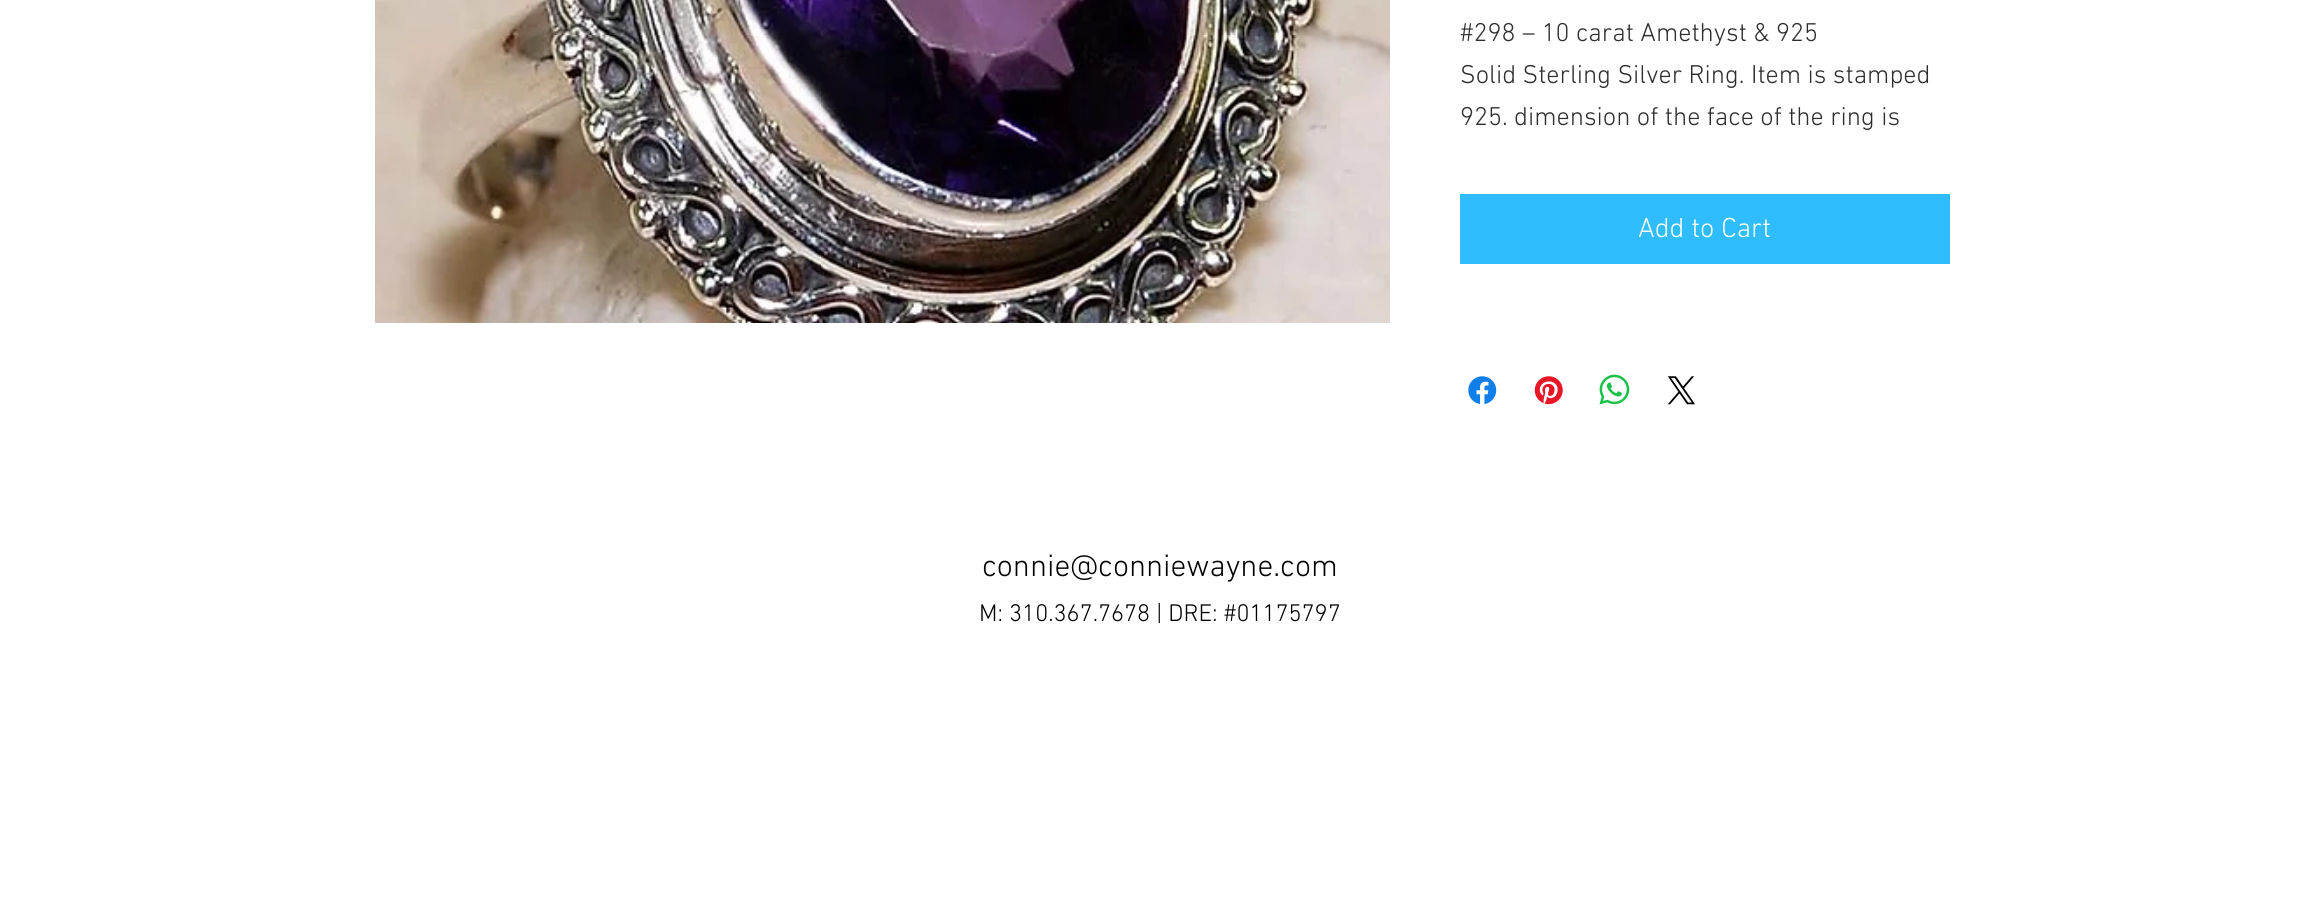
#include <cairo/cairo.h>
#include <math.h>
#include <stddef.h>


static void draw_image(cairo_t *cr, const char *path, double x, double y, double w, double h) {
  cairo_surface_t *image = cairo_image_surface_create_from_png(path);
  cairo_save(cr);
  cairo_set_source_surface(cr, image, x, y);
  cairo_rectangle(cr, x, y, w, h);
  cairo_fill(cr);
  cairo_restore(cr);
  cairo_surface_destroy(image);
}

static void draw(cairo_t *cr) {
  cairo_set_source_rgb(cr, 1, 1, 1);
  cairo_paint(cr);
  draw_image(cr, "images/1.png", 375, 0, 1015, 323);
  cairo_set_source_rgb(cr, 48 / 255.0, 189 / 255.0, 1);
  cairo_rectangle(cr, 1460, 194, 490, 70);
  cairo_fill(cr);
  draw_image(cr, "images/2.png", 1468, 376, 29, 28);
  draw_image(cr, "images/3.png", 1534, 376, 29, 29);
  draw_image(cr, "images/4.png", 1599, 374, 31, 31);
  draw_image(cr, "images/5.png", 1667, 376, 28, 29);
  cairo_select_font_face(cr, "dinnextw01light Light", CAIRO_FONT_SLANT_NORMAL, CAIRO_FONT_WEIGHT_NORMAL);
  cairo_set_font_size(cr, 26.25);
  cairo_set_source_rgb(cr, 47 / 255.0, 46 / 255.0, 46 / 255.0);
  cairo_move_to(cr, 1460, 41);
  cairo_show_text(cr, "#298 – 10 carat Amethyst & 925");
  cairo_move_to(cr, 1460, 83);
  cairo_show_text(cr, "Solid Sterling Silver Ring. Item is stamped");
  cairo_move_to(cr, 1460, 125);
  cairo_show_text(cr, "925. dimension of the face of the ring is");
  cairo_set_font_size(cr, 28);
  cairo_set_source_rgb(cr, 1, 1, 1);
  cairo_move_to(cr, 1638, 237);
  cairo_show_text(cr, "Add to Cart");
  cairo_set_font_size(cr, 31.5);
  cairo_set_source_rgb(cr, 0, 0, 0);
  cairo_move_to(cr, 982, 576);
  cairo_show_text(cr, "connie@conniewayne.com");
  cairo_set_font_size(cr, 24.5);
  cairo_move_to(cr, 979, 621);
  cairo_show_text(cr, "M: 310.367.7678 | DRE: #01175797");
}

int main(void) {
  cairo_surface_t *surface = cairo_image_surface_create(CAIRO_FORMAT_RGB24, 2323, 905);
  cairo_t *cr = cairo_create(surface);
  cairo_font_options_t *options = cairo_font_options_create();
  cairo_font_options_set_hint_metrics(options, CAIRO_HINT_METRICS_OFF);
  cairo_font_options_set_hint_style(options, CAIRO_HINT_STYLE_NONE);
  cairo_set_font_options(cr, options);
  cairo_set_miter_limit(cr, 4);
  draw(cr);
  cairo_surface_write_to_png(surface, "out.png");
  cairo_font_options_destroy(options);
  cairo_destroy(cr);
  cairo_surface_destroy(surface);
  return 0;
}
